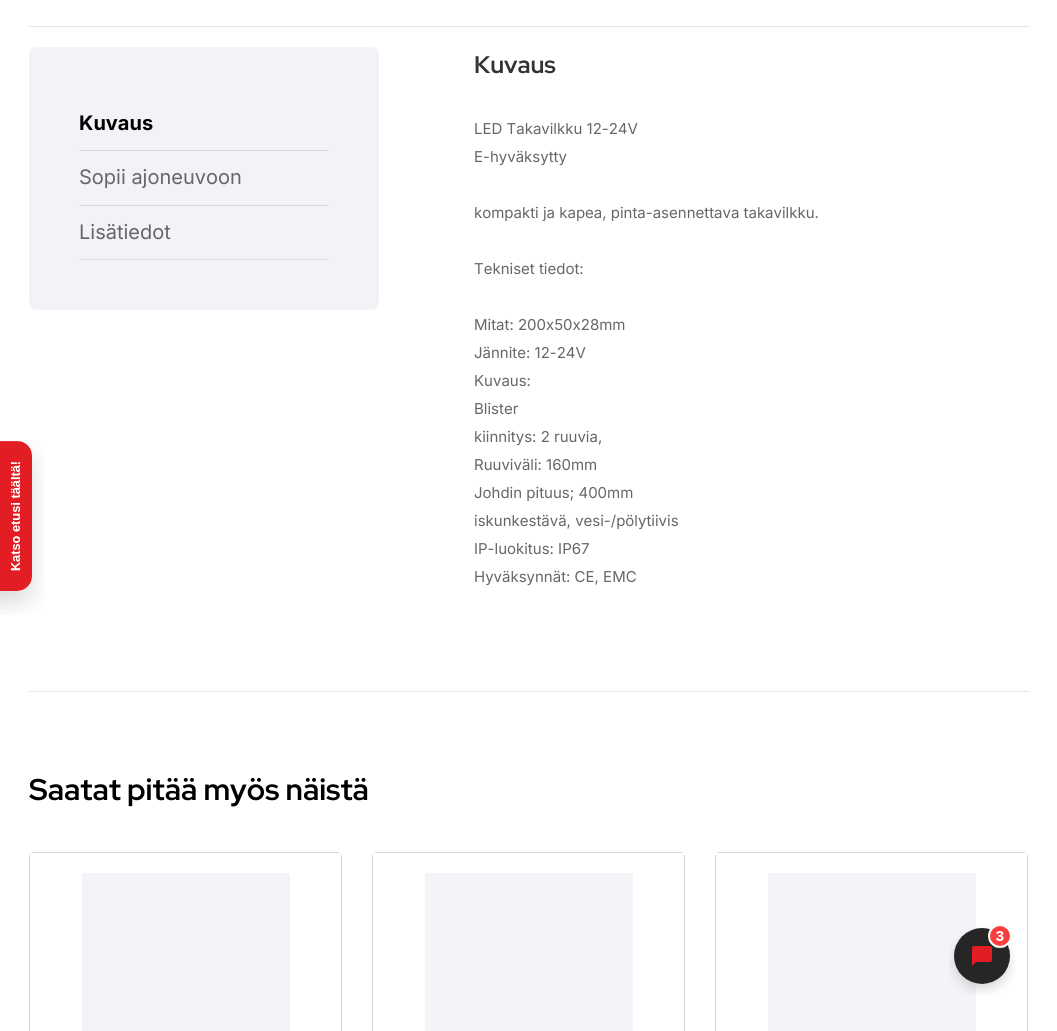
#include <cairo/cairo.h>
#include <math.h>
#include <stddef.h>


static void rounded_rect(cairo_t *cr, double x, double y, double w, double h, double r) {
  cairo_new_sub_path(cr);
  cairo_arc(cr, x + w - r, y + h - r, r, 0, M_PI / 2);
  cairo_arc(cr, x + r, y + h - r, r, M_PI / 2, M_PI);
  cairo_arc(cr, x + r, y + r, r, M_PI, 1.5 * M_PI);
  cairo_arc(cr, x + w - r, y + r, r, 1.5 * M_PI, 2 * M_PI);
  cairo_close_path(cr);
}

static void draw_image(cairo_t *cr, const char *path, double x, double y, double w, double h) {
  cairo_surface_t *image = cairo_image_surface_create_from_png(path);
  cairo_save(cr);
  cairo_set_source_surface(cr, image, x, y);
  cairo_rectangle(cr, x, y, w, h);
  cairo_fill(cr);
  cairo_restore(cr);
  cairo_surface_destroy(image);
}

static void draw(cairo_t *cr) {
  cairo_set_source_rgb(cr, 1, 1, 1);
  cairo_paint(cr);
  draw_image(cr, "images/1.png", 0, 440, 44, 175);
  cairo_set_source_rgb(cr, 229 / 255.0, 229 / 255.0, 229 / 255.0);
  cairo_rectangle(cr, 29, 26, 1000, 1);
  cairo_fill(cr);
  cairo_set_source_rgb(cr, 242 / 255.0, 242 / 255.0, 247 / 255.0);
  rounded_rect(cr, 29, 47, 350, 263, 8);
  cairo_fill(cr);
  cairo_set_source_rgb(cr, 217 / 255.0, 217 / 255.0, 217 / 255.0);
  cairo_rectangle(cr, 79, 150, 250, 1);
  cairo_fill(cr);
  cairo_rectangle(cr, 79, 205, 250, 1);
  cairo_fill(cr);
  cairo_rectangle(cr, 79, 259, 250, 1);
  cairo_fill(cr);
  cairo_set_source_rgb(cr, 229 / 255.0, 229 / 255.0, 229 / 255.0);
  cairo_rectangle(cr, 29, 691, 1000, 1);
  cairo_fill(cr);
  rounded_rect(cr, 29.5, 852.5, 312, 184, 4.5);
  cairo_set_source_rgb(cr, 212 / 255.0, 212 / 255.0, 212 / 255.0);
  cairo_set_line_width(cr, 1);
  cairo_stroke(cr);
  cairo_set_source_rgb(cr, 1, 1, 1);
  cairo_rectangle(cr, 30, 853, 311, 3);
  cairo_fill(cr);
  cairo_set_source_rgb(cr, 244 / 255.0, 244 / 255.0, 248 / 255.0);
  rounded_rect(cr, 82, 873, 208, 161, 2.5);
  cairo_fill(cr);
  rounded_rect(cr, 372.5, 852.5, 312, 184, 4.5);
  cairo_set_source_rgb(cr, 212 / 255.0, 212 / 255.0, 212 / 255.0);
  cairo_stroke(cr);
  cairo_set_source_rgb(cr, 1, 1, 1);
  cairo_rectangle(cr, 373, 853, 311, 3);
  cairo_fill(cr);
  cairo_set_source_rgb(cr, 244 / 255.0, 244 / 255.0, 248 / 255.0);
  rounded_rect(cr, 425, 873, 208, 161, 2.5);
  cairo_fill(cr);
  rounded_rect(cr, 715.5, 852.5, 312, 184, 4.5);
  cairo_set_source_rgb(cr, 212 / 255.0, 212 / 255.0, 212 / 255.0);
  cairo_stroke(cr);
  cairo_set_source_rgb(cr, 1, 1, 1);
  cairo_rectangle(cr, 716, 853, 311, 3);
  cairo_fill(cr);
  cairo_set_source_rgb(cr, 244 / 255.0, 244 / 255.0, 248 / 255.0);
  rounded_rect(cr, 768, 873, 208, 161, 2.5);
  cairo_fill(cr);
  draw_image(cr, "images/2.png", 949, 926, 66, 69);
  cairo_select_font_face(cr, "Inter", CAIRO_FONT_SLANT_NORMAL, CAIRO_FONT_WEIGHT_BOLD);
  cairo_set_font_size(cr, 20);
  cairo_set_source_rgb(cr, 0, 0, 0);
  cairo_move_to(cr, 79, 130);
  cairo_show_text(cr, "Kuvaus");
  cairo_select_font_face(cr, "Inter", CAIRO_FONT_SLANT_NORMAL, CAIRO_FONT_WEIGHT_NORMAL);
  cairo_set_source_rgb(cr, 102 / 255.0, 102 / 255.0, 102 / 255.0);
  cairo_move_to(cr, 79, 184);
  cairo_show_text(cr, "Sopii ajoneuvoon");
  cairo_move_to(cr, 79, 239);
  cairo_show_text(cr, "Lisätiedot");
  cairo_select_font_face(cr, "Red Hat Display", CAIRO_FONT_SLANT_NORMAL, CAIRO_FONT_WEIGHT_BOLD);
  cairo_set_font_size(cr, 24);
  cairo_set_source_rgb(cr, 51 / 255.0, 51 / 255.0, 51 / 255.0);
  cairo_move_to(cr, 474, 73);
  cairo_show_text(cr, "Kuvaus");
  cairo_select_font_face(cr, "Inter", CAIRO_FONT_SLANT_NORMAL, CAIRO_FONT_WEIGHT_NORMAL);
  cairo_set_font_size(cr, 15);
  cairo_set_source_rgb(cr, 102 / 255.0, 102 / 255.0, 102 / 255.0);
  cairo_move_to(cr, 474, 134);
  cairo_show_text(cr, "LED Takavilkku 12-24V");
  cairo_move_to(cr, 474, 162);
  cairo_show_text(cr, "E-hyväksytty");
  cairo_move_to(cr, 474, 218);
  cairo_show_text(cr, "kompakti ja kapea, pinta-asennettava takavilkku.");
  cairo_move_to(cr, 474, 274);
  cairo_show_text(cr, "Tekniset tiedot:");
  cairo_move_to(cr, 474, 330);
  cairo_show_text(cr, "Mitat: 200x50x28mm");
  cairo_move_to(cr, 474, 358);
  cairo_show_text(cr, "Jännite: 12-24V");
  cairo_move_to(cr, 474, 386);
  cairo_show_text(cr, "Kuvaus:");
  cairo_move_to(cr, 474, 414);
  cairo_show_text(cr, "Blister");
  cairo_move_to(cr, 474, 442);
  cairo_show_text(cr, "kiinnitys: 2 ruuvia,");
  cairo_move_to(cr, 474, 470);
  cairo_show_text(cr, "Ruuviväli: 160mm");
  cairo_move_to(cr, 474, 498);
  cairo_show_text(cr, "Johdin pituus; 400mm");
  cairo_move_to(cr, 474, 526);
  cairo_show_text(cr, "iskunkestävä, vesi-/pölytiivis");
  cairo_move_to(cr, 474, 554);
  cairo_show_text(cr, "IP-luokitus: IP67");
  cairo_move_to(cr, 474, 582);
  cairo_show_text(cr, "Hyväksynnät: CE, EMC");
  cairo_select_font_face(cr, "Red Hat Display", CAIRO_FONT_SLANT_NORMAL, CAIRO_FONT_WEIGHT_BOLD);
  cairo_set_font_size(cr, 30);
  cairo_set_source_rgb(cr, 0, 0, 0);
  cairo_move_to(cr, 29, 800);
  cairo_show_text(cr, "Saatat pitää myös näistä");
}

int main(void) {
  cairo_surface_t *surface = cairo_image_surface_create(CAIRO_FORMAT_RGB24, 1057, 1031);
  cairo_t *cr = cairo_create(surface);
  cairo_font_options_t *options = cairo_font_options_create();
  cairo_font_options_set_hint_metrics(options, CAIRO_HINT_METRICS_OFF);
  cairo_font_options_set_hint_style(options, CAIRO_HINT_STYLE_NONE);
  cairo_set_font_options(cr, options);
  cairo_set_miter_limit(cr, 4);
  draw(cr);
  cairo_surface_write_to_png(surface, "out.png");
  cairo_font_options_destroy(options);
  cairo_destroy(cr);
  cairo_surface_destroy(surface);
  return 0;
}
